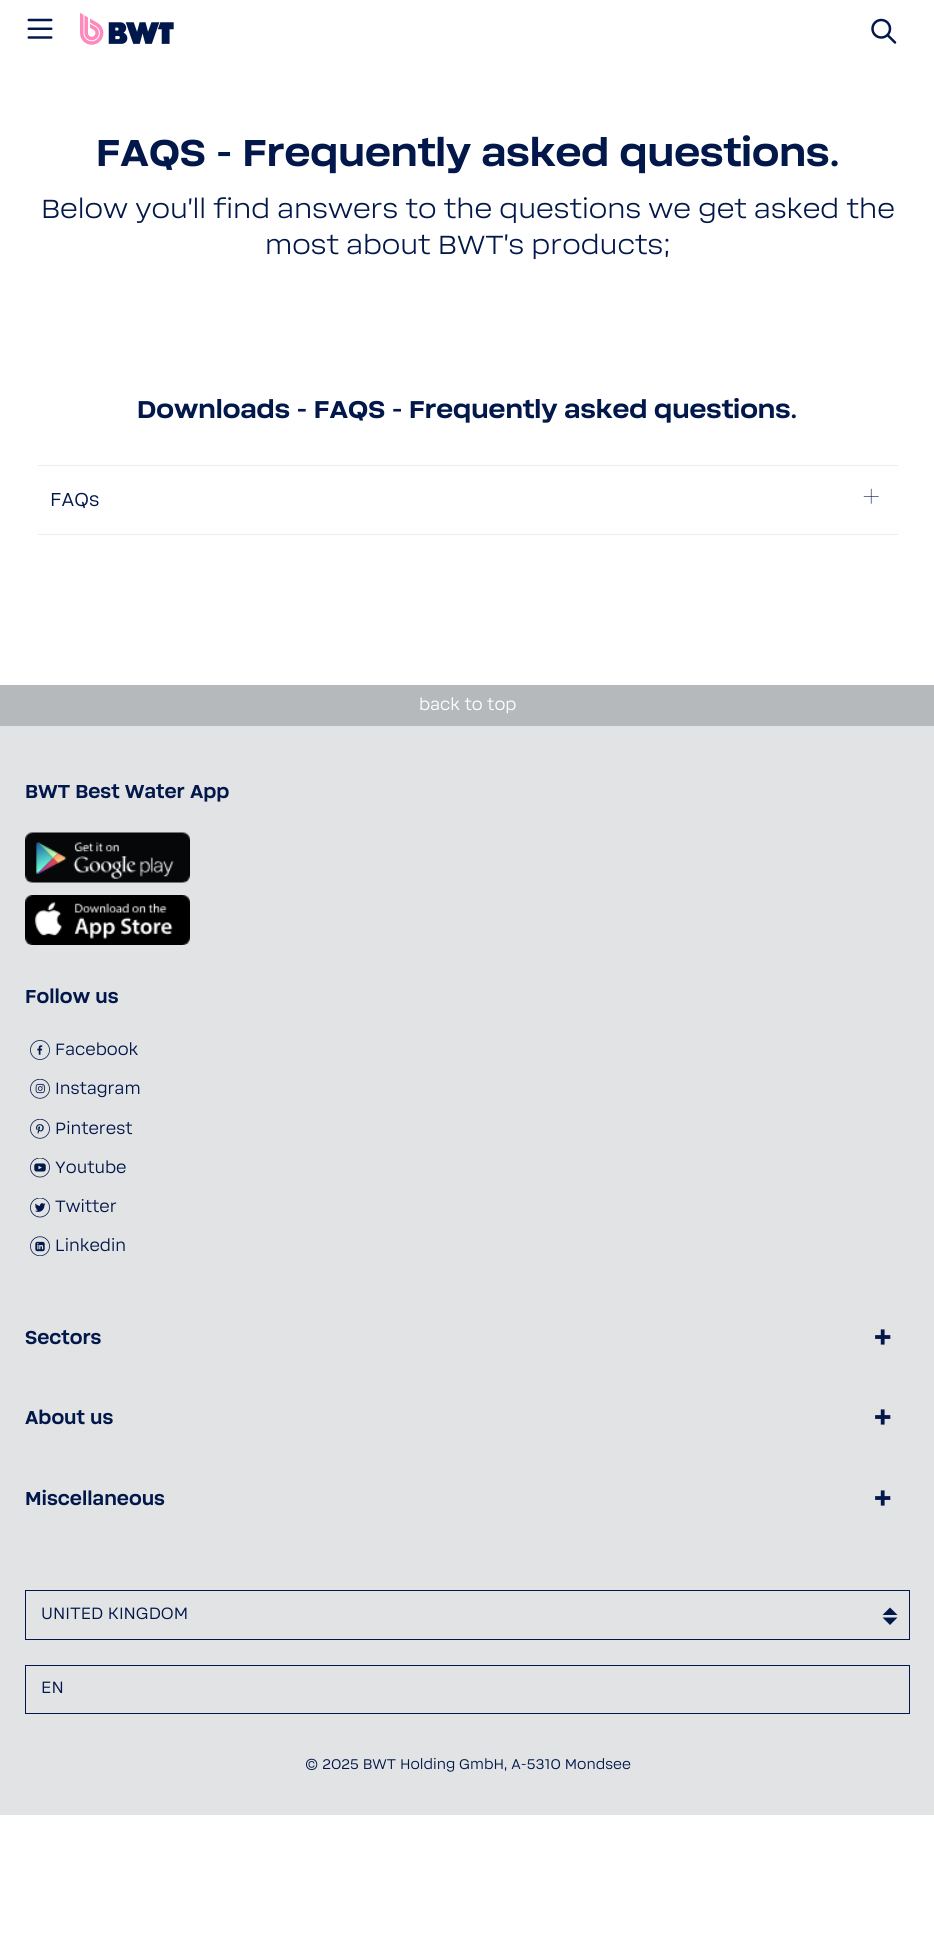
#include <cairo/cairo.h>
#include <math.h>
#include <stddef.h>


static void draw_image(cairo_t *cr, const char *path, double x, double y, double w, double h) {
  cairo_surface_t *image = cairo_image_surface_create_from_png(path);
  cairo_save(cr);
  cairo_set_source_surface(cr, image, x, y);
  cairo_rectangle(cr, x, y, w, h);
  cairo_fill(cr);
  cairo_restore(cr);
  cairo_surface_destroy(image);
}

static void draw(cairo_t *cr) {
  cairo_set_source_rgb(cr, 1, 1, 1);
  cairo_paint(cr);
  draw_image(cr, "images/1.png", 27, 18, 26, 21);
  draw_image(cr, "images/2.png", 80, 13, 94, 32);
  draw_image(cr, "images/3.png", 871, 18, 26, 26);
  cairo_set_source_rgb(cr, 236 / 255.0, 236 / 255.0, 236 / 255.0);
  cairo_rectangle(cr, 38, 465, 860, 1);
  cairo_fill(cr);
  cairo_rectangle(cr, 38, 534, 860, 1);
  cairo_fill(cr);
  draw_image(cr, "images/4.png", 863, 488, 16, 16);
  cairo_set_source_rgb(cr, 225 / 255.0, 227 / 255.0, 228 / 255.0);
  cairo_rectangle(cr, 0, 726, 934, 1089);
  cairo_fill(cr);
  cairo_set_source_rgb(cr, 181 / 255.0, 185 / 255.0, 187 / 255.0);
  cairo_rectangle(cr, 0, 685, 934, 41);
  cairo_fill(cr);
  draw_image(cr, "images/5.png", 25, 832, 165, 51);
  draw_image(cr, "images/6.png", 25, 895, 165, 50);
  draw_image(cr, "images/7.png", 30, 1040, 20, 20);
  draw_image(cr, "images/8.png", 30, 1079, 20, 20);
  draw_image(cr, "images/9.png", 30, 1119, 20, 20);
  draw_image(cr, "images/10.png", 30, 1158, 20, 20);
  draw_image(cr, "images/11.png", 30, 1198, 20, 20);
  draw_image(cr, "images/12.png", 30, 1236, 20, 20);
  cairo_rectangle(cr, 25.5, 1590.5, 884, 49);
  cairo_set_source_rgb(cr, 2 / 255.0, 23 / 255.0, 74 / 255.0);
  cairo_set_line_width(cr, 1);
  cairo_stroke(cr);
  cairo_new_path(cr);
  cairo_move_to(cr, 897.5, 1615);
  cairo_line_to(cr, 882.5, 1615);
  cairo_line_to(cr, 890, 1607.5);
  cairo_close_path(cr);
  cairo_move_to(cr, 882.5, 1617.5);
  cairo_line_to(cr, 897.5, 1617.5);
  cairo_line_to(cr, 890, 1625);
  cairo_close_path(cr);
  cairo_fill(cr);
  cairo_rectangle(cr, 25.5, 1665.5, 884, 48);
  cairo_stroke(cr);
  cairo_select_font_face(cr, "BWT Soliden", CAIRO_FONT_SLANT_NORMAL, CAIRO_FONT_WEIGHT_BOLD);
  cairo_set_font_size(cr, 40);
  cairo_move_to(cr, 96, 166);
  cairo_show_text(cr, "FAQS - Frequently asked questions.");
  cairo_select_font_face(cr, "BWT Soliden Light", CAIRO_FONT_SLANT_NORMAL, CAIRO_FONT_WEIGHT_NORMAL);
  cairo_set_font_size(cr, 28);
  cairo_move_to(cr, 41, 218);
  cairo_show_text(cr, "Below you'll find answers to the questions we get asked the");
  cairo_move_to(cr, 265, 254);
  cairo_show_text(cr, "most about BWT's products;");
  cairo_select_font_face(cr, "BWT Soliden", CAIRO_FONT_SLANT_NORMAL, CAIRO_FONT_WEIGHT_BOLD);
  cairo_set_font_size(cr, 26);
  cairo_move_to(cr, 137, 418);
  cairo_show_text(cr, "Downloads - FAQS - Frequently asked questions.");
  cairo_select_font_face(cr, "BWT Soliden", CAIRO_FONT_SLANT_NORMAL, CAIRO_FONT_WEIGHT_NORMAL);
  cairo_set_font_size(cr, 20);
  cairo_move_to(cr, 50, 506);
  cairo_show_text(cr, "FAQs");
  cairo_set_font_size(cr, 17.5);
  cairo_set_source_rgb(cr, 1, 1, 1);
  cairo_move_to(cr, 419, 710);
  cairo_show_text(cr, "back to top");
  cairo_select_font_face(cr, "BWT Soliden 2", CAIRO_FONT_SLANT_NORMAL, CAIRO_FONT_WEIGHT_BOLD);
  cairo_set_font_size(cr, 20);
  cairo_set_source_rgb(cr, 2 / 255.0, 23 / 255.0, 74 / 255.0);
  cairo_move_to(cr, 25, 798);
  cairo_show_text(cr, "BWT Best Water App");
  cairo_move_to(cr, 25, 1003);
  cairo_show_text(cr, "Follow us");
  cairo_select_font_face(cr, "BWT Soliden", CAIRO_FONT_SLANT_NORMAL, CAIRO_FONT_WEIGHT_NORMAL);
  cairo_set_font_size(cr, 17.5);
  cairo_move_to(cr, 55, 1055);
  cairo_show_text(cr, "Facebook");
  cairo_move_to(cr, 55, 1094);
  cairo_show_text(cr, "Instagram");
  cairo_move_to(cr, 55, 1134);
  cairo_show_text(cr, "Pinterest");
  cairo_move_to(cr, 55, 1173);
  cairo_show_text(cr, "Youtube");
  cairo_move_to(cr, 55, 1212);
  cairo_show_text(cr, "Twitter");
  cairo_move_to(cr, 55, 1251);
  cairo_show_text(cr, "Linkedin");
  cairo_select_font_face(cr, "BWT Soliden 2", CAIRO_FONT_SLANT_NORMAL, CAIRO_FONT_WEIGHT_BOLD);
  cairo_set_font_size(cr, 20);
  cairo_move_to(cr, 25, 1344);
  cairo_show_text(cr, "Sectors");
  cairo_set_font_size(cr, 40);
  cairo_move_to(cr, 873, 1349);
  cairo_show_text(cr, "+");
  cairo_set_font_size(cr, 20);
  cairo_move_to(cr, 25, 1424);
  cairo_show_text(cr, "About us");
  cairo_set_font_size(cr, 40);
  cairo_move_to(cr, 873, 1429);
  cairo_show_text(cr, "+");
  cairo_set_font_size(cr, 20);
  cairo_move_to(cr, 25, 1505);
  cairo_show_text(cr, "Miscellaneous");
  cairo_set_font_size(cr, 40);
  cairo_move_to(cr, 873, 1510);
  cairo_show_text(cr, "+");
  cairo_select_font_face(cr, "BWT Soliden", CAIRO_FONT_SLANT_NORMAL, CAIRO_FONT_WEIGHT_NORMAL);
  cairo_set_font_size(cr, 17.5);
  cairo_move_to(cr, 41, 1619);
  cairo_show_text(cr, "UNITED KINGDOM");
  cairo_move_to(cr, 41, 1693);
  cairo_show_text(cr, "EN");
  cairo_set_font_size(cr, 15);
  cairo_move_to(cr, 305, 1769);
  cairo_show_text(cr, "© 2025 BWT Holding GmbH, A-5310 Mondsee");
}

int main(void) {
  cairo_surface_t *surface = cairo_image_surface_create(CAIRO_FORMAT_RGB24, 934, 1934);
  cairo_t *cr = cairo_create(surface);
  cairo_font_options_t *options = cairo_font_options_create();
  cairo_font_options_set_hint_metrics(options, CAIRO_HINT_METRICS_OFF);
  cairo_font_options_set_hint_style(options, CAIRO_HINT_STYLE_NONE);
  cairo_set_font_options(cr, options);
  cairo_set_miter_limit(cr, 4);
  draw(cr);
  cairo_surface_write_to_png(surface, "out.png");
  cairo_font_options_destroy(options);
  cairo_destroy(cr);
  cairo_surface_destroy(surface);
  return 0;
}
